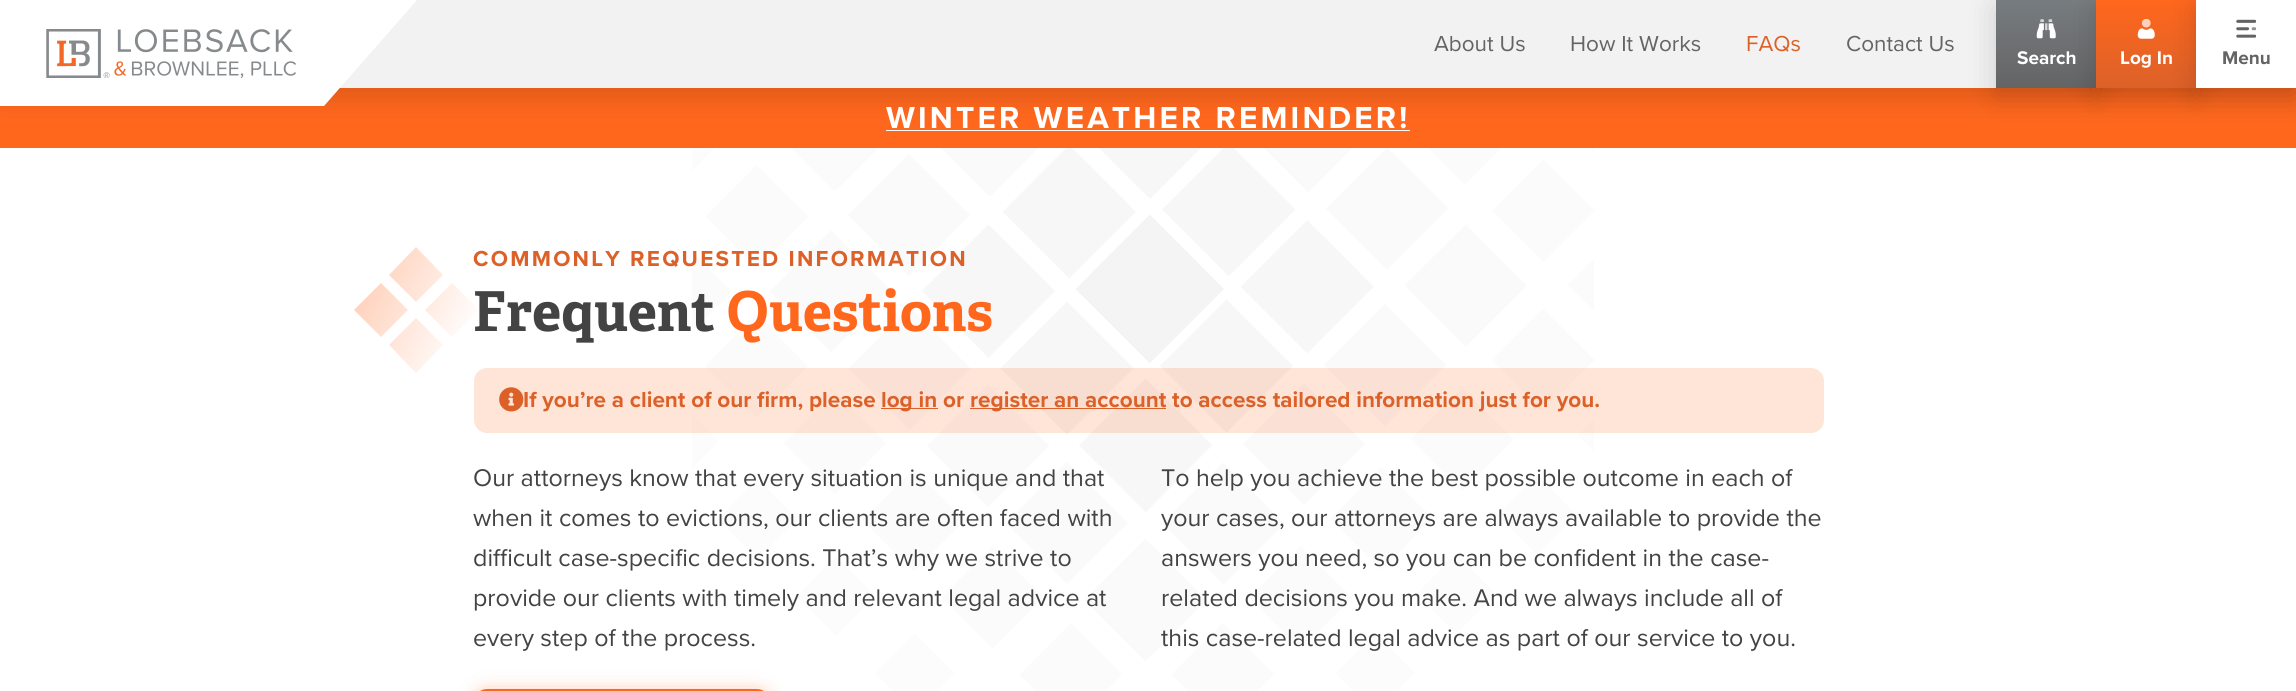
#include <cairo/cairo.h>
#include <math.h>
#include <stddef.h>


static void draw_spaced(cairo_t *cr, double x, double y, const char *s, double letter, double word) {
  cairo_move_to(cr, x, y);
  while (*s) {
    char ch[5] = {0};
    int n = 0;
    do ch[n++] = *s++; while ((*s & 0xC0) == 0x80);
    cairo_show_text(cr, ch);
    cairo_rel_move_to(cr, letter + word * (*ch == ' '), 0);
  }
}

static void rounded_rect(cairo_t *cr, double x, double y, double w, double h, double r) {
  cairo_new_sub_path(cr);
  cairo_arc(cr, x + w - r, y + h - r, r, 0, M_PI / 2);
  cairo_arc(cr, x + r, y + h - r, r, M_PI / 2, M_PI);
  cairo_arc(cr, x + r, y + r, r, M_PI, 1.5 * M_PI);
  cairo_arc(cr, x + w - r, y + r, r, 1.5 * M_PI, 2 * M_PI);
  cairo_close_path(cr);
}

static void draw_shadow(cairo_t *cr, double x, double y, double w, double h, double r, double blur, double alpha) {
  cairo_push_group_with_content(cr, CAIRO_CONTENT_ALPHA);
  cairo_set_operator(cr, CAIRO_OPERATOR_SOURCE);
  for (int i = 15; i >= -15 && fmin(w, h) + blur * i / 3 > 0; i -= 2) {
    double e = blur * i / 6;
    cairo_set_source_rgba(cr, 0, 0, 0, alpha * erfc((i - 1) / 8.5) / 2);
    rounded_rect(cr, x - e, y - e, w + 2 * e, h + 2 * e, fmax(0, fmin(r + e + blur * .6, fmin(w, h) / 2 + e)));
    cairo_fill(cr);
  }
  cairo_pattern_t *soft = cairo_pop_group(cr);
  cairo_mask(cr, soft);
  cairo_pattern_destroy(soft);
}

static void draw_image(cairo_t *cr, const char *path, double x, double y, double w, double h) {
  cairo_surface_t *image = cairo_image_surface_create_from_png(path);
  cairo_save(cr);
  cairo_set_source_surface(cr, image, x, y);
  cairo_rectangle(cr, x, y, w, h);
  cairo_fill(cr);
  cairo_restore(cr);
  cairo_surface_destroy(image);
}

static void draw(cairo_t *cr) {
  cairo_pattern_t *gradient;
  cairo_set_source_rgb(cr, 1, 103 / 255.0, 29 / 255.0);
  cairo_paint(cr);
  cairo_set_source_rgb(cr, 1, 1, 1);
  cairo_rectangle(cr, 886, 130, 524, 1);
  cairo_fill(cr);
  cairo_set_source_rgb(cr, 0, 0, 0);
  draw_shadow(cr, 0, 8, 2296, 87, 0, 15.5, 0.15);
  cairo_set_source_rgb(cr, 242 / 255.0, 242 / 255.0, 242 / 255.0);
  cairo_rectangle(cr, 339, 0, 1657, 88);
  cairo_fill(cr);
  cairo_set_source_rgb(cr, 1, 1, 1);
  cairo_new_path(cr);
  cairo_move_to(cr, 0, 0);
  cairo_line_to(cr, 0, 106);
  cairo_line_to(cr, 324, 106);
  cairo_line_to(cr, 417, 0);
  cairo_close_path(cr);
  cairo_fill(cr);
  draw_image(cr, "images/1.png", 46, 29, 250, 49);
  cairo_set_source_rgb(cr, 0, 0, 0);
  draw_shadow(cr, 1996, 8, 100, 87, 0, 15, 0.15);
  gradient = cairo_pattern_create_linear(2046, 0, 2046, 88);
  cairo_pattern_add_color_stop_rgba(gradient, 0, 119 / 255.0, 124 / 255.0, 128 / 255.0, 1);
  cairo_pattern_add_color_stop_rgba(gradient, 1, 100 / 255.0, 100 / 255.0, 100 / 255.0, 1);
  cairo_set_source(cr, gradient);
  cairo_pattern_destroy(gradient);
  cairo_rectangle(cr, 1996, 0, 100, 88);
  cairo_fill(cr);
  draw_image(cr, "images/2.png", 2036, 19, 20, 20);
  cairo_set_source_rgb(cr, 0, 0, 0);
  draw_shadow(cr, 2096, 8, 100, 87, 0, 15, 0.15);
  gradient = cairo_pattern_create_linear(2146, 0, 2146, 88);
  cairo_pattern_add_color_stop_rgba(gradient, 0, 1, 103 / 255.0, 29 / 255.0, 1);
  cairo_pattern_add_color_stop_rgba(gradient, 1, 220 / 255.0, 97 / 255.0, 41 / 255.0, 1);
  cairo_set_source(cr, gradient);
  cairo_pattern_destroy(gradient);
  cairo_rectangle(cr, 2096, 0, 100, 88);
  cairo_fill(cr);
  draw_image(cr, "images/3.png", 2137, 19, 18, 20);
  cairo_set_source_rgb(cr, 0, 0, 0);
  draw_shadow(cr, 2196, 8, 100, 87, 0, 15, 0.15);
  cairo_set_source_rgb(cr, 1, 1, 1);
  cairo_rectangle(cr, 2196, 0, 100, 88);
  cairo_fill(cr);
  draw_image(cr, "images/4.png", 2236, 19, 20, 19);
  cairo_rectangle(cr, 0, 148, 2296, 543);
  cairo_fill(cr);
  draw_image(cr, "images/5.png", 692, 147, 902, 544);
  cairo_set_source_rgb(cr, 1, 103 / 255.0, 29 / 255.0);
  draw_shadow(cr, 474, 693, 296, 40, 13, 9.5, 0.5);
  rounded_rect(cr, 476, 691, 292, 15, 11);
  cairo_set_source_rgb(cr, 1, 103 / 255.0, 29 / 255.0);
  cairo_set_line_width(cr, 4);
  cairo_stroke(cr);
  cairo_select_font_face(cr, "Proxima Nova", CAIRO_FONT_SLANT_NORMAL, CAIRO_FONT_WEIGHT_NORMAL);
  cairo_set_font_size(cr, 22.5);
  cairo_set_source_rgb(cr, 100 / 255.0, 100 / 255.0, 100 / 255.0);
  cairo_move_to(cr, 1434, 51);
  cairo_show_text(cr, "About Us");
  cairo_move_to(cr, 1570, 51);
  cairo_show_text(cr, "How It Works");
  cairo_set_source_rgb(cr, 220 / 255.0, 97 / 255.0, 41 / 255.0);
  cairo_move_to(cr, 1746, 51);
  cairo_show_text(cr, "FAQs");
  cairo_set_source_rgb(cr, 100 / 255.0, 100 / 255.0, 100 / 255.0);
  cairo_move_to(cr, 1846, 51);
  cairo_show_text(cr, "Contact Us");
  cairo_select_font_face(cr, "Proxima Nova", CAIRO_FONT_SLANT_NORMAL, CAIRO_FONT_WEIGHT_BOLD);
  cairo_set_font_size(cr, 19);
  cairo_set_source_rgb(cr, 1, 1, 1);
  cairo_move_to(cr, 2017, 64);
  cairo_show_text(cr, "Search");
  cairo_move_to(cr, 2120, 64);
  cairo_show_text(cr, "Log In");
  cairo_set_source_rgb(cr, 100 / 255.0, 100 / 255.0, 100 / 255.0);
  cairo_move_to(cr, 2222, 64);
  cairo_show_text(cr, "Menu");
  cairo_set_font_size(cr, 31.5);
  cairo_set_source_rgb(cr, 1, 1, 1);
  draw_spaced(cr, 886, 128, "WINTER WEATHER REMINDER!", 3.15, 0);
  cairo_set_font_size(cr, 22.5);
  cairo_set_source_rgb(cr, 220 / 255.0, 97 / 255.0, 41 / 255.0);
  draw_spaced(cr, 473, 266, "COMMONLY REQUESTED INFORMATION", 2.25, 0);
  cairo_select_font_face(cr, "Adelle", CAIRO_FONT_SLANT_NORMAL, CAIRO_FONT_WEIGHT_BOLD);
  cairo_set_font_size(cr, 55);
  cairo_set_source_rgb(cr, 67 / 255.0, 67 / 255.0, 67 / 255.0);
  cairo_move_to(cr, 473, 331);
  cairo_show_text(cr, "Frequent");
  gradient = cairo_pattern_create_linear(472, 337, 363, 283);
  cairo_pattern_add_color_stop_rgba(gradient, 0, 1, 1, 1, 1);
  cairo_pattern_add_color_stop_rgba(gradient, 1, 1, 209 / 255.0, 187 / 255.0, 1);
  cairo_set_source(cr, gradient);
  cairo_pattern_destroy(gradient);
  cairo_new_path(cr);
  cairo_move_to(cr, 389, 345);
  cairo_line_to(cr, 416, 318);
  cairo_line_to(cr, 443, 345);
  cairo_line_to(cr, 416, 373);
  cairo_close_path(cr);
  cairo_move_to(cr, 425, 310);
  cairo_line_to(cr, 452, 283);
  cairo_line_to(cr, 479, 310);
  cairo_line_to(cr, 452, 337);
  cairo_close_path(cr);
  cairo_move_to(cr, 354, 310);
  cairo_line_to(cr, 381, 283);
  cairo_line_to(cr, 408, 310);
  cairo_line_to(cr, 381, 337);
  cairo_close_path(cr);
  cairo_move_to(cr, 389, 275);
  cairo_line_to(cr, 416, 247);
  cairo_line_to(cr, 443, 275);
  cairo_line_to(cr, 416, 302);
  cairo_close_path(cr);
  cairo_fill(cr);
  cairo_set_source_rgb(cr, 1, 103 / 255.0, 29 / 255.0);
  cairo_move_to(cr, 727, 331);
  cairo_show_text(cr, "Questions");
  cairo_set_source_rgba(cr, 1, 103 / 255.0, 29 / 255.0, 0.17);
  rounded_rect(cr, 474, 368, 1350, 65, 13);
  cairo_fill(cr);
  draw_image(cr, "images/6.png", 499, 387, 25, 25);
  cairo_select_font_face(cr, "Proxima Nova", CAIRO_FONT_SLANT_NORMAL, CAIRO_FONT_WEIGHT_BOLD);
  cairo_set_font_size(cr, 22.5);
  cairo_set_source_rgb(cr, 220 / 255.0, 97 / 255.0, 41 / 255.0);
  cairo_move_to(cr, 523, 407);
  cairo_show_text(cr, "If you’re a client of our firm, please");
  cairo_rectangle(cr, 881, 408, 57, 1);
  cairo_fill(cr);
  cairo_move_to(cr, 881, 407);
  cairo_show_text(cr, "log in or");
  cairo_rectangle(cr, 970, 408, 196, 1);
  cairo_fill(cr);
  cairo_move_to(cr, 970, 407);
  cairo_show_text(cr, "register an account to access tailored information just for you.");
  cairo_select_font_face(cr, "Proxima Nova", CAIRO_FONT_SLANT_NORMAL, CAIRO_FONT_WEIGHT_NORMAL);
  cairo_set_font_size(cr, 25);
  cairo_set_source_rgb(cr, 67 / 255.0, 67 / 255.0, 67 / 255.0);
  cairo_move_to(cr, 473, 486);
  cairo_show_text(cr, "Our attorneys know that every situation is unique and that");
  cairo_move_to(cr, 473, 526);
  cairo_show_text(cr, "when it comes to evictions, our clients are often faced with");
  cairo_move_to(cr, 473, 566);
  cairo_show_text(cr, "difficult case-specific decisions. That’s why we strive to");
  cairo_move_to(cr, 473, 606);
  cairo_show_text(cr, "provide our clients with timely and relevant legal advice at");
  cairo_move_to(cr, 473, 646);
  cairo_show_text(cr, "every step of the process.");
  cairo_move_to(cr, 1161, 486);
  cairo_show_text(cr, "To help you achieve the best possible outcome in each of");
  cairo_move_to(cr, 1161, 526);
  cairo_show_text(cr, "your cases, our attorneys are always available to provide the");
  cairo_move_to(cr, 1161, 566);
  cairo_show_text(cr, "answers you need, so you can be confident in the case-");
  cairo_move_to(cr, 1161, 606);
  cairo_show_text(cr, "related decisions you make. And we always include all of");
  cairo_move_to(cr, 1161, 646);
  cairo_show_text(cr, "this case-related legal advice as part of our service to you.");
}

int main(void) {
  cairo_surface_t *surface = cairo_image_surface_create(CAIRO_FORMAT_RGB24, 2296, 691);
  cairo_t *cr = cairo_create(surface);
  cairo_font_options_t *options = cairo_font_options_create();
  cairo_font_options_set_hint_metrics(options, CAIRO_HINT_METRICS_OFF);
  cairo_font_options_set_hint_style(options, CAIRO_HINT_STYLE_NONE);
  cairo_set_font_options(cr, options);
  cairo_set_miter_limit(cr, 4);
  draw(cr);
  cairo_surface_write_to_png(surface, "out.png");
  cairo_font_options_destroy(options);
  cairo_destroy(cr);
  cairo_surface_destroy(surface);
  return 0;
}
